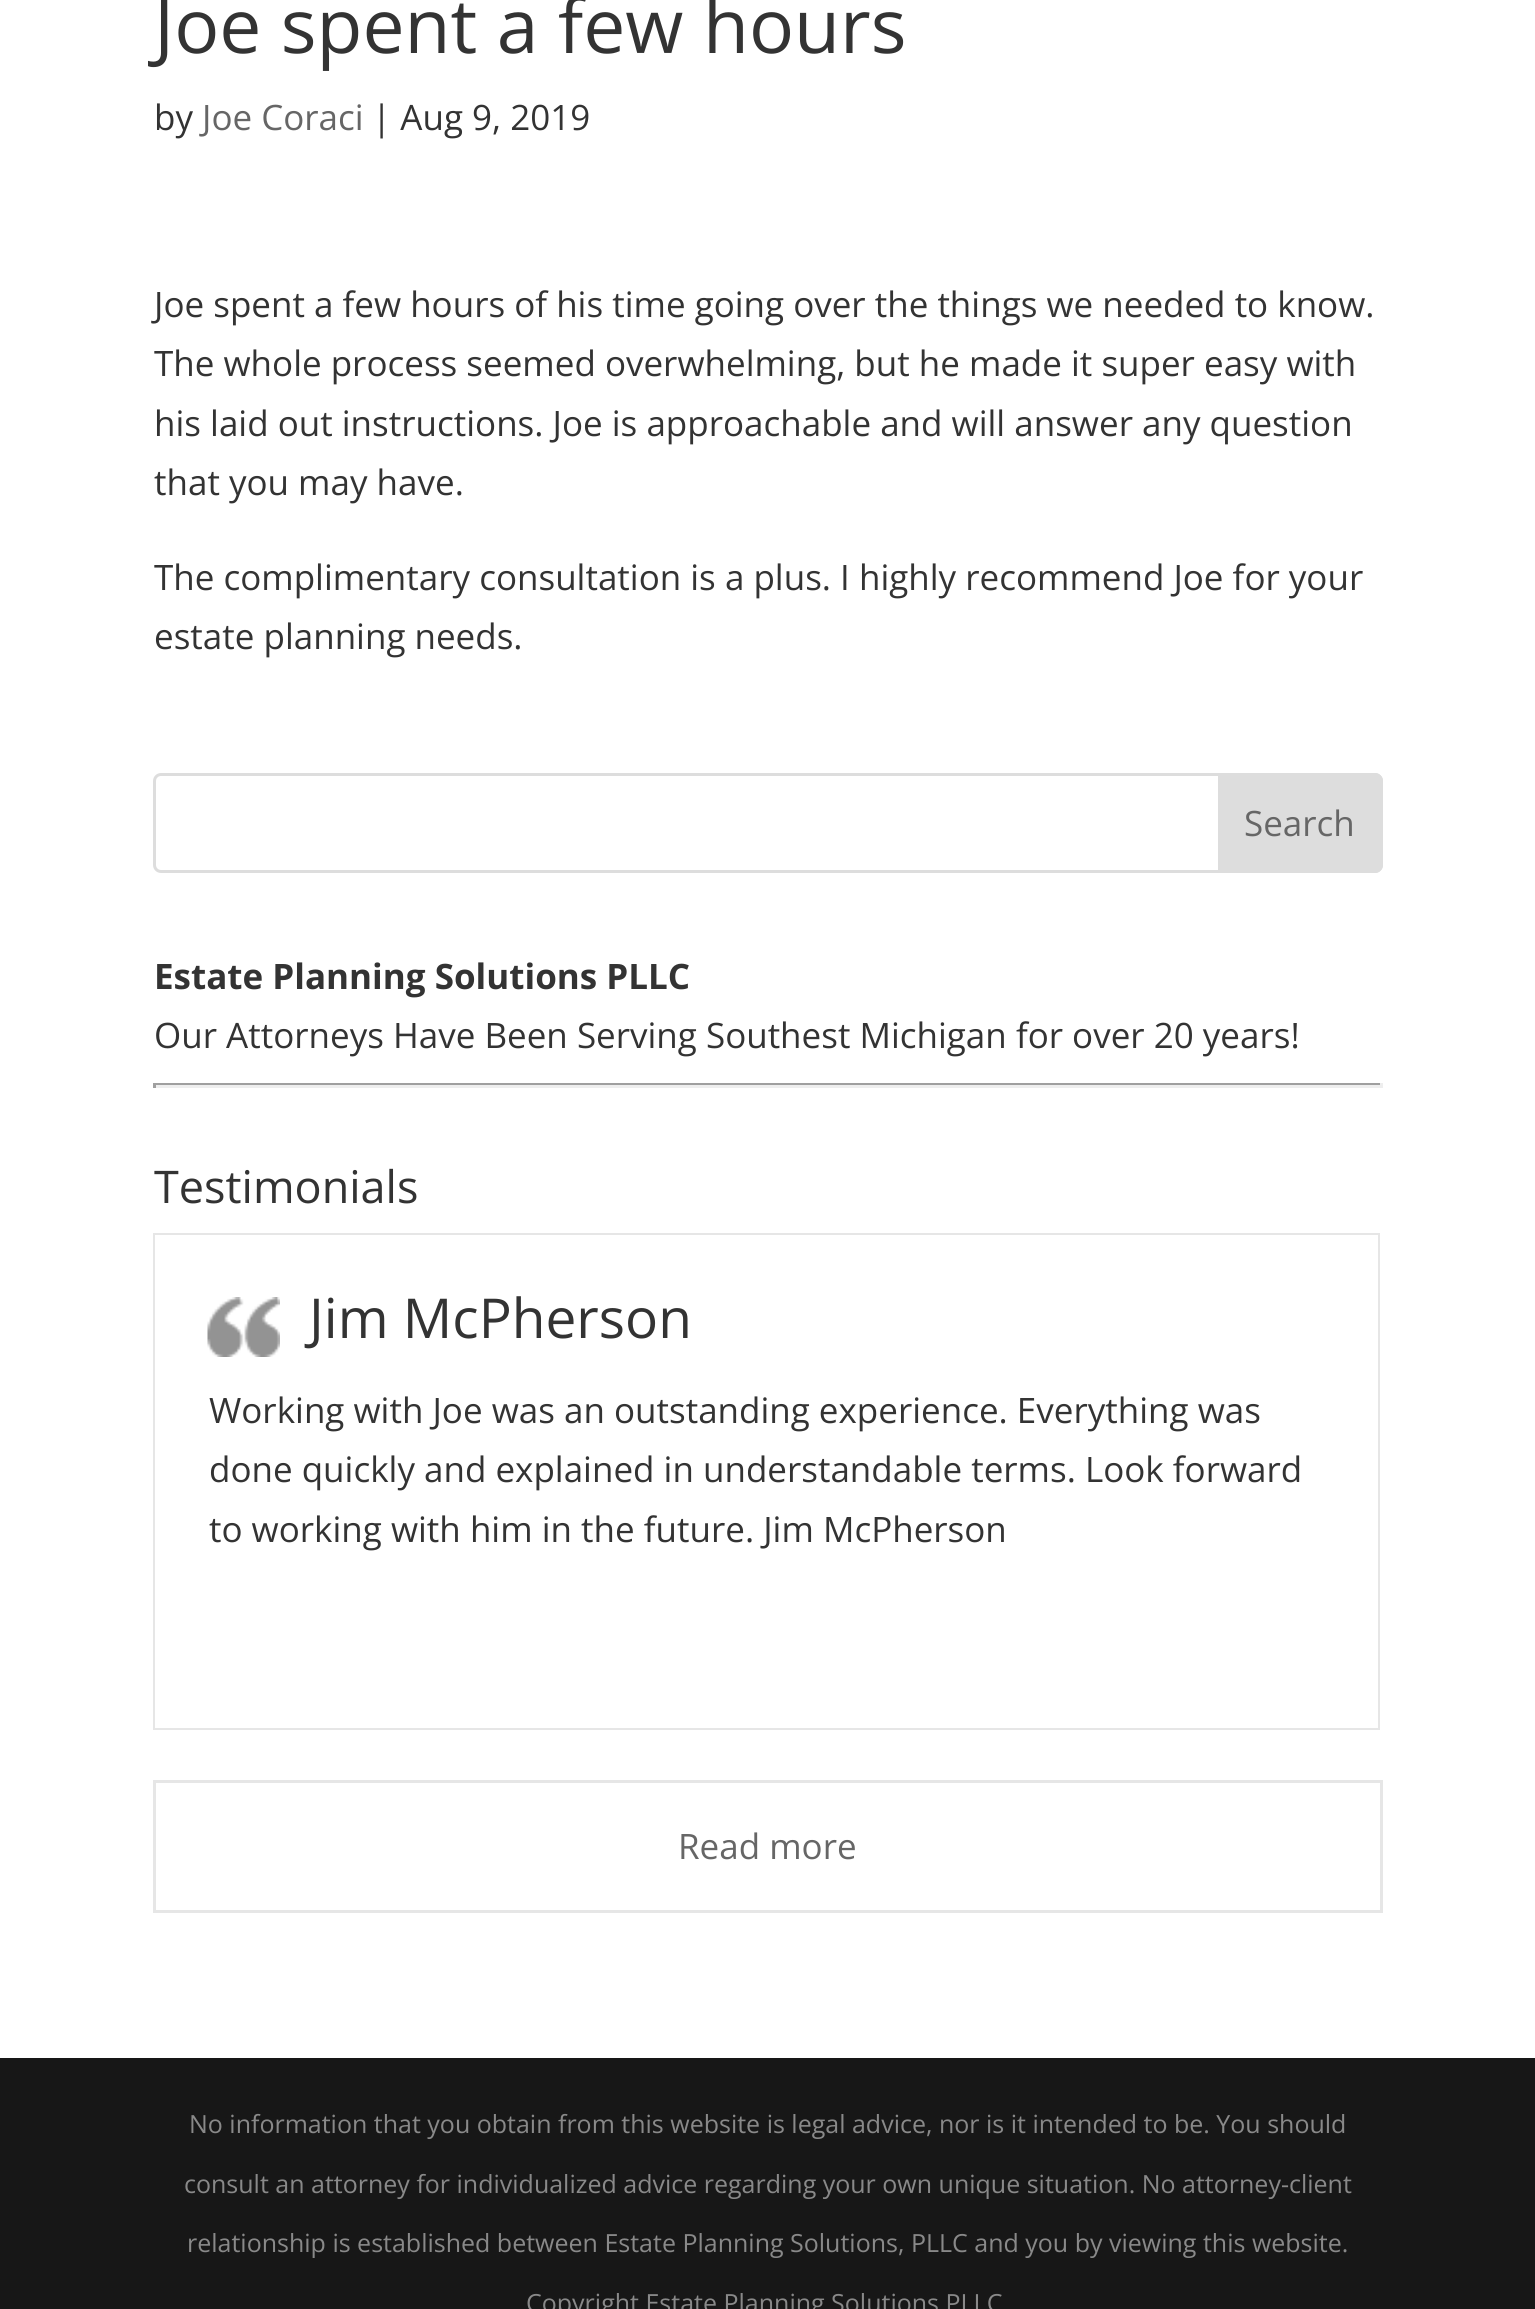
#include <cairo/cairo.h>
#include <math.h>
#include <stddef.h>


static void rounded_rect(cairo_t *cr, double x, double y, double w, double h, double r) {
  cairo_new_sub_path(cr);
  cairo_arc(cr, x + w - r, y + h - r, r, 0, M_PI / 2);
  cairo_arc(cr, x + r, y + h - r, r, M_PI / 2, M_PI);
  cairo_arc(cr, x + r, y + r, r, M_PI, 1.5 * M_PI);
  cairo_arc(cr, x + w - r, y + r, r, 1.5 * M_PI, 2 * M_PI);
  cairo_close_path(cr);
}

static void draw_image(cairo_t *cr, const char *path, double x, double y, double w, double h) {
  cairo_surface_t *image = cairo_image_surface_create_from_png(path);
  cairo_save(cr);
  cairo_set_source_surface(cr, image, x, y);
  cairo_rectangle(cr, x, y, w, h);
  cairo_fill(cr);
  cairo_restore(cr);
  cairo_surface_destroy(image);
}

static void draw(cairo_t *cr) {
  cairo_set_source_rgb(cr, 1, 1, 1);
  cairo_paint(cr);
  rounded_rect(cr, 154.5, 774.5, 1227, 97, 6.5);
  cairo_set_source_rgb(cr, 221 / 255.0, 221 / 255.0, 221 / 255.0);
  cairo_set_line_width(cr, 3);
  cairo_stroke(cr);
  cairo_new_path(cr);
  cairo_move_to(cr, 1219.5, 774.5);
  cairo_line_to(cr, 1375, 774.5);
  cairo_curve_to(cr, 1378.5, 774.5, 1381.5, 777.5, 1381.5, 781);
  cairo_line_to(cr, 1381.5, 865);
  cairo_curve_to(cr, 1381.5, 868.5, 1378.5, 871.5, 1375, 871.5);
  cairo_line_to(cr, 1219.5, 871.5);
  cairo_close_path(cr);
  cairo_fill_preserve(cr);
  cairo_stroke(cr);
  cairo_set_source_rgb(cr, 159 / 255.0, 159 / 255.0, 159 / 255.0);
  cairo_rectangle(cr, 153, 1083, 1230, 2);
  cairo_fill(cr);
  cairo_set_source_rgb(cr, 238 / 255.0, 238 / 255.0, 238 / 255.0);
  cairo_rectangle(cr, 1380, 1083, 3, 5);
  cairo_fill(cr);
  cairo_rectangle(cr, 153, 1085, 1230, 3);
  cairo_fill(cr);
  cairo_set_source_rgb(cr, 159 / 255.0, 159 / 255.0, 159 / 255.0);
  cairo_rectangle(cr, 153, 1083, 3, 5);
  cairo_fill(cr);
  cairo_rectangle(cr, 154.5, 1234.5, 1224, 494);
  cairo_set_source_rgb(cr, 230 / 255.0, 230 / 255.0, 230 / 255.0);
  cairo_stroke(cr);
  cairo_rectangle(cr, 156.5, 1236.5, 1220, 490);
  cairo_set_source_rgb(cr, 1, 1, 1);
  cairo_stroke(cr);
  draw_image(cr, "images/1.png", 207, 1297, 73, 60);
  cairo_rectangle(cr, 154.5, 1781.5, 1227, 130);
  cairo_set_source_rgb(cr, 230 / 255.0, 230 / 255.0, 230 / 255.0);
  cairo_stroke(cr);
  cairo_set_source_rgb(cr, 23 / 255.0, 23 / 255.0, 23 / 255.0);
  cairo_rectangle(cr, 0, 2058, 1535, 251);
  cairo_fill(cr);
  cairo_select_font_face(cr, "Open Sans", CAIRO_FONT_SLANT_NORMAL, CAIRO_FONT_WEIGHT_NORMAL);
  cairo_set_font_size(cr, 75);
  cairo_set_source_rgb(cr, 51 / 255.0, 51 / 255.0, 51 / 255.0);
  cairo_move_to(cr, 154, 53);
  cairo_show_text(cr, "Joe spent a few hours");
  cairo_set_font_size(cr, 35);
  cairo_move_to(cr, 154, 130);
  cairo_show_text(cr, "by");
  cairo_set_source_rgb(cr, 102 / 255.0, 102 / 255.0, 102 / 255.0);
  cairo_move_to(cr, 202, 130);
  cairo_show_text(cr, "Joe Coraci");
  cairo_set_source_rgb(cr, 51 / 255.0, 51 / 255.0, 51 / 255.0);
  cairo_move_to(cr, 372, 130);
  cairo_show_text(cr, "| Aug 9, 2019");
  cairo_move_to(cr, 154, 317);
  cairo_show_text(cr, "Joe spent a few hours of his time going over the things we needed to know.");
  cairo_move_to(cr, 154, 376);
  cairo_show_text(cr, "The whole process seemed overwhelming, but he made it super easy with");
  cairo_move_to(cr, 154, 436);
  cairo_show_text(cr, "his laid out instructions. Joe is approachable and will answer any question");
  cairo_move_to(cr, 154, 495);
  cairo_show_text(cr, "that you may have.");
  cairo_move_to(cr, 154, 590);
  cairo_show_text(cr, "The complimentary consultation is a plus. I highly recommend Joe for your");
  cairo_move_to(cr, 154, 649);
  cairo_show_text(cr, "estate planning needs.");
  cairo_set_source_rgb(cr, 102 / 255.0, 102 / 255.0, 102 / 255.0);
  cairo_move_to(cr, 1244, 836);
  cairo_show_text(cr, "Search");
  cairo_select_font_face(cr, "Open Sans", CAIRO_FONT_SLANT_NORMAL, CAIRO_FONT_WEIGHT_BOLD);
  cairo_set_source_rgb(cr, 51 / 255.0, 51 / 255.0, 51 / 255.0);
  cairo_move_to(cr, 154, 989);
  cairo_show_text(cr, "Estate Planning Solutions PLLC");
  cairo_select_font_face(cr, "Open Sans", CAIRO_FONT_SLANT_NORMAL, CAIRO_FONT_WEIGHT_NORMAL);
  cairo_move_to(cr, 154, 1048);
  cairo_show_text(cr, "Our Attorneys Have Been Serving Southest Michigan for over 20 years!");
  cairo_set_font_size(cr, 45);
  cairo_move_to(cr, 154, 1203);
  cairo_show_text(cr, "Testimonials");
  cairo_set_font_size(cr, 55);
  cairo_move_to(cr, 309, 1338);
  cairo_show_text(cr, "Jim McPherson");
  cairo_set_font_size(cr, 35);
  cairo_move_to(cr, 209, 1423);
  cairo_show_text(cr, "Working with Joe was an outstanding experience. Everything was");
  cairo_move_to(cr, 209, 1482);
  cairo_show_text(cr, "done quickly and explained in understandable terms. Look forward");
  cairo_move_to(cr, 209, 1542);
  cairo_show_text(cr, "to working with him in the future. Jim McPherson");
  cairo_set_source_rgb(cr, 102 / 255.0, 102 / 255.0, 102 / 255.0);
  cairo_move_to(cr, 678, 1859);
  cairo_show_text(cr, "Read more");
  cairo_set_font_size(cr, 25);
  cairo_set_source_rgb(cr, 137 / 255.0, 137 / 255.0, 137 / 255.0);
  cairo_move_to(cr, 189, 2133);
  cairo_show_text(cr, "No information that you obtain from this website is legal advice, nor is it intended to be. You should");
  cairo_move_to(cr, 184, 2193);
  cairo_show_text(cr, "consult an attorney for individualized advice regarding your own unique situation. No attorney-client");
  cairo_move_to(cr, 187, 2252);
  cairo_show_text(cr, "relationship is established between Estate Planning Solutions, PLLC and you by viewing this website.");
  cairo_move_to(cr, 526, 2312);
  cairo_show_text(cr, "Copyright Estate Planning Solutions PLLC");
}

int main(void) {
  cairo_surface_t *surface = cairo_image_surface_create(CAIRO_FORMAT_RGB24, 1535, 2309);
  cairo_t *cr = cairo_create(surface);
  cairo_font_options_t *options = cairo_font_options_create();
  cairo_font_options_set_hint_metrics(options, CAIRO_HINT_METRICS_OFF);
  cairo_font_options_set_hint_style(options, CAIRO_HINT_STYLE_NONE);
  cairo_set_font_options(cr, options);
  cairo_set_miter_limit(cr, 4);
  draw(cr);
  cairo_surface_write_to_png(surface, "out.png");
  cairo_font_options_destroy(options);
  cairo_destroy(cr);
  cairo_surface_destroy(surface);
  return 0;
}
